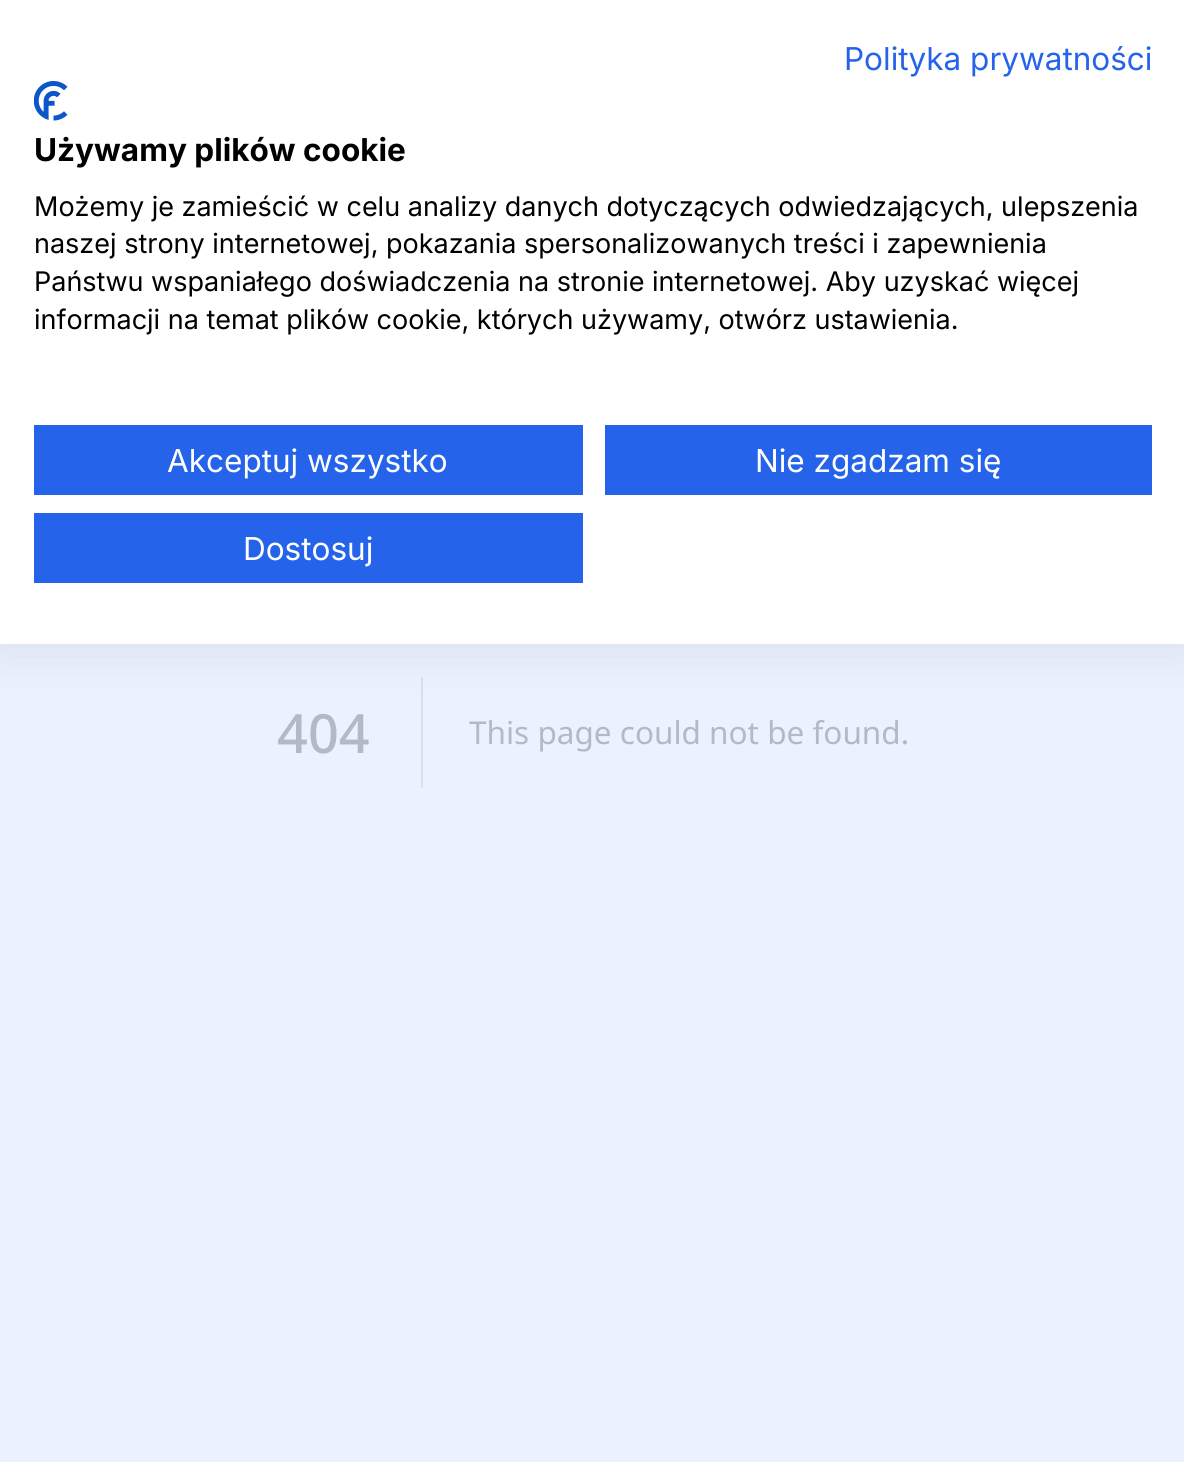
#include <cairo/cairo.h>
#include <math.h>
#include <stddef.h>


static void rounded_rect(cairo_t *cr, double x, double y, double w, double h, double r) {
  cairo_new_sub_path(cr);
  cairo_arc(cr, x + w - r, y + h - r, r, 0, M_PI / 2);
  cairo_arc(cr, x + r, y + h - r, r, M_PI / 2, M_PI);
  cairo_arc(cr, x + r, y + r, r, M_PI, 1.5 * M_PI);
  cairo_arc(cr, x + w - r, y + r, r, 1.5 * M_PI, 2 * M_PI);
  cairo_close_path(cr);
}

static void draw_shadow(cairo_t *cr, double x, double y, double w, double h, double r, double blur, double alpha) {
  cairo_push_group_with_content(cr, CAIRO_CONTENT_ALPHA);
  cairo_set_operator(cr, CAIRO_OPERATOR_SOURCE);
  for (int i = 15; i >= -15 && fmin(w, h) + blur * i / 3 > 0; i -= 2) {
    double e = blur * i / 6;
    cairo_set_source_rgba(cr, 0, 0, 0, alpha * erfc((i - 1) / 8.5) / 2);
    rounded_rect(cr, x - e, y - e, w + 2 * e, h + 2 * e, fmax(0, fmin(r + e + blur * .6, fmin(w, h) / 2 + e)));
    cairo_fill(cr);
  }
  cairo_pattern_t *soft = cairo_pop_group(cr);
  cairo_mask(cr, soft);
  cairo_pattern_destroy(soft);
}

static void draw_image(cairo_t *cr, const char *path, double x, double y, double w, double h) {
  cairo_surface_t *image = cairo_image_surface_create_from_png(path);
  cairo_save(cr);
  cairo_set_source_surface(cr, image, x, y);
  cairo_rectangle(cr, x, y, w, h);
  cairo_fill(cr);
  cairo_restore(cr);
  cairo_surface_destroy(image);
}

static void draw(cairo_t *cr) {
  cairo_set_source_rgb(cr, 236 / 255.0, 241 / 255.0, 1);
  cairo_paint(cr);
  cairo_set_source_rgb(cr, 219 / 255.0, 224 / 255.0, 238 / 255.0);
  cairo_rectangle(cr, 421, 677, 2, 111);
  cairo_fill(cr);
  cairo_set_source_rgb(cr, 0, 0, 0);
  draw_shadow(cr, 0, 0, 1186, 644, 0, 27, 0.1);
  cairo_set_source_rgb(cr, 1, 1, 1);
  cairo_rectangle(cr, 0, 0, 1184, 644);
  cairo_fill(cr);
  draw_image(cr, "images/1.png", 34, 81, 34, 40);
  cairo_set_source_rgb(cr, 37 / 255.0, 99 / 255.0, 235 / 255.0);
  cairo_rectangle(cr, 34, 425, 549, 70);
  cairo_fill(cr);
  cairo_rectangle(cr, 605, 425, 547, 70);
  cairo_fill(cr);
  cairo_rectangle(cr, 34, 513, 549, 70);
  cairo_fill(cr);
  cairo_select_font_face(cr, "Inter", CAIRO_FONT_SLANT_NORMAL, CAIRO_FONT_WEIGHT_NORMAL);
  cairo_set_font_size(cr, 31.5);
  cairo_move_to(cr, 844, 70);
  cairo_show_text(cr, "Polityka prywatności");
  cairo_select_font_face(cr, "Inter", CAIRO_FONT_SLANT_NORMAL, CAIRO_FONT_WEIGHT_BOLD);
  cairo_set_source_rgb(cr, 0, 0, 0);
  cairo_move_to(cr, 34, 161);
  cairo_show_text(cr, "Używamy plików cookie");
  cairo_select_font_face(cr, "Inter", CAIRO_FONT_SLANT_NORMAL, CAIRO_FONT_WEIGHT_NORMAL);
  cairo_set_font_size(cr, 27);
  cairo_move_to(cr, 34, 216);
  cairo_show_text(cr, "Możemy je zamieścić w celu analizy danych dotyczących odwiedzających, ulepszenia");
  cairo_move_to(cr, 34, 253);
  cairo_show_text(cr, "naszej strony internetowej, pokazania spersonalizowanych treści i zapewnienia");
  cairo_move_to(cr, 34, 291);
  cairo_show_text(cr, "Państwu wspaniałego doświadczenia na stronie internetowej. Aby uzyskać więcej");
  cairo_move_to(cr, 34, 329);
  cairo_show_text(cr, "informacji na temat plików cookie, których używamy, otwórz ustawienia.");
  cairo_set_font_size(cr, 31.5);
  cairo_set_source_rgb(cr, 1, 1, 1);
  cairo_move_to(cr, 167, 472);
  cairo_show_text(cr, "Akceptuj wszystko");
  cairo_move_to(cr, 755, 472);
  cairo_show_text(cr, "Nie zgadzam się");
  cairo_move_to(cr, 243, 560);
  cairo_show_text(cr, "Dostosuj");
  cairo_select_font_face(cr, "Noto Sans Medium", CAIRO_FONT_SLANT_NORMAL, CAIRO_FONT_WEIGHT_NORMAL);
  cairo_set_font_size(cr, 54);
  cairo_set_source_rgb(cr, 179 / 255.0, 185 / 255.0, 199 / 255.0);
  cairo_move_to(cr, 277, 753);
  cairo_show_text(cr, "404");
  cairo_select_font_face(cr, "Noto Sans", CAIRO_FONT_SLANT_NORMAL, CAIRO_FONT_WEIGHT_NORMAL);
  cairo_set_font_size(cr, 31.5);
  cairo_move_to(cr, 469, 744);
  cairo_show_text(cr, "This page could not be found.");
}

int main(void) {
  cairo_surface_t *surface = cairo_image_surface_create(CAIRO_FORMAT_RGB24, 1184, 1462);
  cairo_t *cr = cairo_create(surface);
  cairo_font_options_t *options = cairo_font_options_create();
  cairo_font_options_set_hint_metrics(options, CAIRO_HINT_METRICS_OFF);
  cairo_font_options_set_hint_style(options, CAIRO_HINT_STYLE_NONE);
  cairo_set_font_options(cr, options);
  cairo_set_miter_limit(cr, 4);
  draw(cr);
  cairo_surface_write_to_png(surface, "out.png");
  cairo_font_options_destroy(options);
  cairo_destroy(cr);
  cairo_surface_destroy(surface);
  return 0;
}
